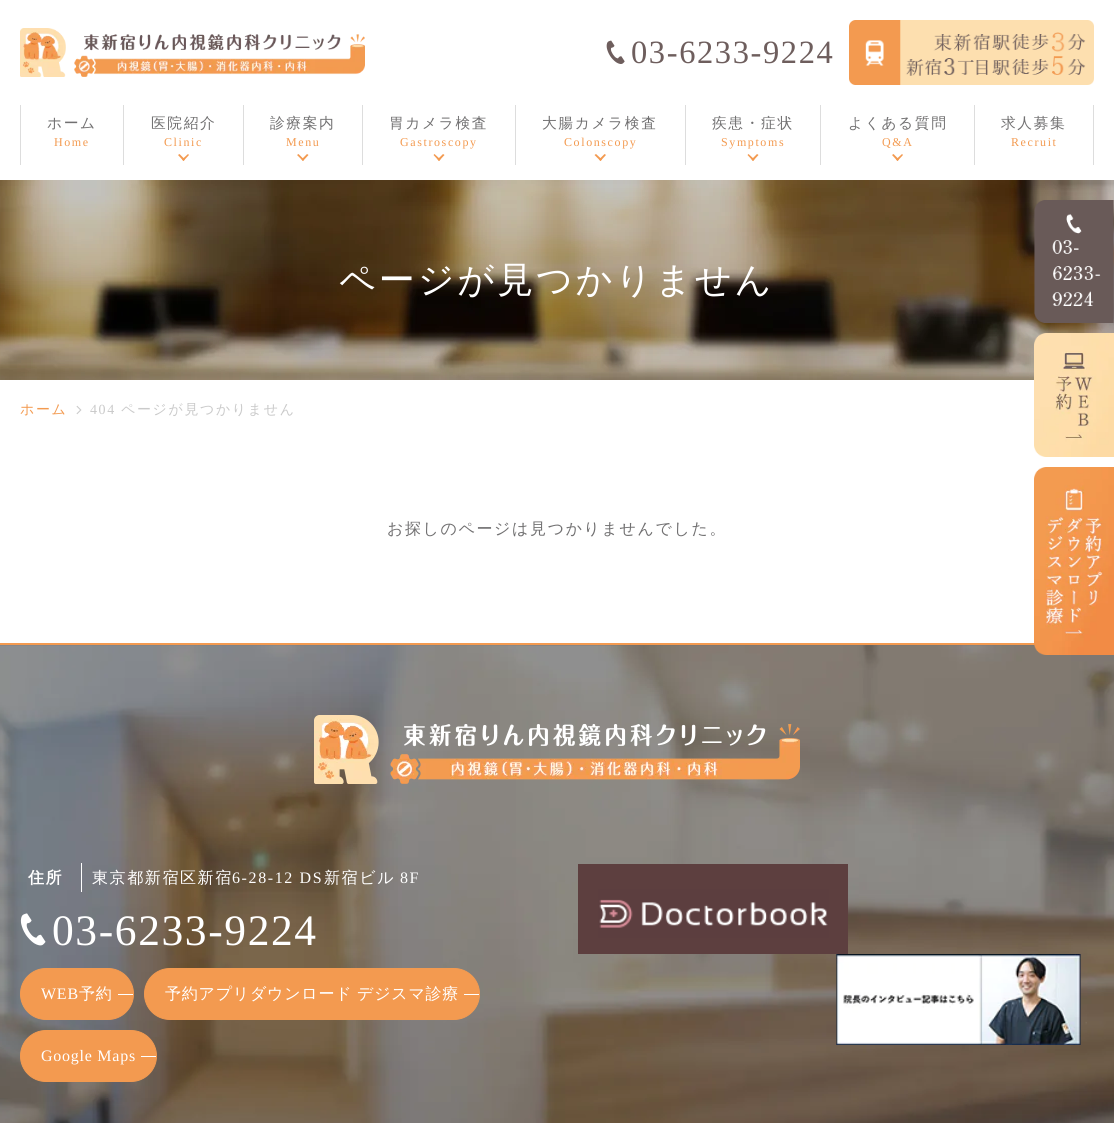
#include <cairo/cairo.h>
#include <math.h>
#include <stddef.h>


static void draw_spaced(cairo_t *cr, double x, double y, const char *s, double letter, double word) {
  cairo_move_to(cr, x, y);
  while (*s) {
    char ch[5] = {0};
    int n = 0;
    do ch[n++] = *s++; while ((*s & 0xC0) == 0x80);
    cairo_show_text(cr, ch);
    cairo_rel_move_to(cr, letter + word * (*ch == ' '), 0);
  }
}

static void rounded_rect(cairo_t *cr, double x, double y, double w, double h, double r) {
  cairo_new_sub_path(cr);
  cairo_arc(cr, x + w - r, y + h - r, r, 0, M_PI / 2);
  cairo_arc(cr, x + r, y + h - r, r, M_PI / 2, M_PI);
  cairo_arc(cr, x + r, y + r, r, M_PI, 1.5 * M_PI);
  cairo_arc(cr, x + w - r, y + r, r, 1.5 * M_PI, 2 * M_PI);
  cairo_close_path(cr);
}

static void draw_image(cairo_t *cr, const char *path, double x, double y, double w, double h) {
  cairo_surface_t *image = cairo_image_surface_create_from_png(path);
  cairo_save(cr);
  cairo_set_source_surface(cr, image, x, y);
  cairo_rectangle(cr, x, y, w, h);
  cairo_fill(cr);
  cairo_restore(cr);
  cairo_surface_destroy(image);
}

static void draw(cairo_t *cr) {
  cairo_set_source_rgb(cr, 1, 1, 1);
  cairo_paint(cr);
  draw_image(cr, "images/1.png", 20, 28, 345, 49);
  draw_image(cr, "images/2.png", 606, 40, 19, 24);
  draw_image(cr, "images/3.png", 849, 20, 245, 65);
  cairo_set_source_rgb(cr, 221 / 255.0, 221 / 255.0, 221 / 255.0);
  cairo_rectangle(cr, 123, 105, 1, 60);
  cairo_fill(cr);
  cairo_rectangle(cr, 20, 105, 1, 60);
  cairo_fill(cr);
  cairo_rectangle(cr, 243, 105, 1, 60);
  cairo_fill(cr);
  cairo_set_source_rgb(cr, 243 / 255.0, 154 / 255.0, 80 / 255.0);
  cairo_new_path(cr);
  cairo_move_to(cr, 188, 154);
  cairo_line_to(cr, 189, 155);
  cairo_line_to(cr, 183.5, 161);
  cairo_line_to(cr, 182, 159.5);
  cairo_close_path(cr);
  cairo_fill(cr);
  cairo_new_path(cr);
  cairo_move_to(cr, 179.5, 154);
  cairo_line_to(cr, 185, 159.5);
  cairo_line_to(cr, 183.5, 161);
  cairo_line_to(cr, 178, 155);
  cairo_close_path(cr);
  cairo_fill(cr);
  cairo_set_source_rgb(cr, 221 / 255.0, 221 / 255.0, 221 / 255.0);
  cairo_rectangle(cr, 362, 105, 1, 60);
  cairo_fill(cr);
  cairo_set_source_rgb(cr, 243 / 255.0, 154 / 255.0, 80 / 255.0);
  cairo_new_path(cr);
  cairo_move_to(cr, 307, 154);
  cairo_line_to(cr, 308.5, 155);
  cairo_line_to(cr, 303, 161);
  cairo_line_to(cr, 301.5, 159.5);
  cairo_close_path(cr);
  cairo_fill(cr);
  cairo_new_path(cr);
  cairo_move_to(cr, 298.5, 154);
  cairo_line_to(cr, 304, 159.5);
  cairo_line_to(cr, 303, 161);
  cairo_line_to(cr, 297, 155);
  cairo_close_path(cr);
  cairo_fill(cr);
  cairo_set_source_rgb(cr, 221 / 255.0, 221 / 255.0, 221 / 255.0);
  cairo_rectangle(cr, 515, 105, 1, 60);
  cairo_fill(cr);
  cairo_set_source_rgb(cr, 243 / 255.0, 154 / 255.0, 80 / 255.0);
  cairo_new_path(cr);
  cairo_move_to(cr, 443, 154);
  cairo_line_to(cr, 444.5, 155);
  cairo_line_to(cr, 439, 161);
  cairo_line_to(cr, 437.5, 159.5);
  cairo_close_path(cr);
  cairo_fill(cr);
  cairo_new_path(cr);
  cairo_move_to(cr, 434.5, 154);
  cairo_line_to(cr, 440.5, 159.5);
  cairo_line_to(cr, 439, 161);
  cairo_line_to(cr, 433.5, 155);
  cairo_close_path(cr);
  cairo_fill(cr);
  cairo_set_source_rgb(cr, 221 / 255.0, 221 / 255.0, 221 / 255.0);
  cairo_rectangle(cr, 685, 105, 1, 60);
  cairo_fill(cr);
  cairo_set_source_rgb(cr, 243 / 255.0, 154 / 255.0, 80 / 255.0);
  cairo_new_path(cr);
  cairo_move_to(cr, 604.5, 154);
  cairo_line_to(cr, 606, 155);
  cairo_line_to(cr, 600.5, 161);
  cairo_line_to(cr, 599, 159.5);
  cairo_close_path(cr);
  cairo_fill(cr);
  cairo_new_path(cr);
  cairo_move_to(cr, 596, 154);
  cairo_line_to(cr, 602, 159.5);
  cairo_line_to(cr, 600.5, 161);
  cairo_line_to(cr, 594.5, 155);
  cairo_close_path(cr);
  cairo_fill(cr);
  cairo_set_source_rgb(cr, 221 / 255.0, 221 / 255.0, 221 / 255.0);
  cairo_rectangle(cr, 820, 105, 1, 60);
  cairo_fill(cr);
  cairo_set_source_rgb(cr, 243 / 255.0, 154 / 255.0, 80 / 255.0);
  cairo_new_path(cr);
  cairo_move_to(cr, 757, 154);
  cairo_line_to(cr, 758.5, 155);
  cairo_line_to(cr, 753, 161);
  cairo_line_to(cr, 751.5, 159.5);
  cairo_close_path(cr);
  cairo_fill(cr);
  cairo_new_path(cr);
  cairo_move_to(cr, 748.5, 154);
  cairo_line_to(cr, 754.5, 159.5);
  cairo_line_to(cr, 753, 161);
  cairo_line_to(cr, 747.5, 155);
  cairo_close_path(cr);
  cairo_fill(cr);
  cairo_set_source_rgb(cr, 221 / 255.0, 221 / 255.0, 221 / 255.0);
  cairo_rectangle(cr, 974, 105, 1, 60);
  cairo_fill(cr);
  cairo_set_source_rgb(cr, 243 / 255.0, 154 / 255.0, 80 / 255.0);
  cairo_new_path(cr);
  cairo_move_to(cr, 902, 154);
  cairo_line_to(cr, 903, 155);
  cairo_line_to(cr, 897.5, 161);
  cairo_line_to(cr, 896, 159.5);
  cairo_close_path(cr);
  cairo_fill(cr);
  cairo_new_path(cr);
  cairo_move_to(cr, 893.5, 154);
  cairo_line_to(cr, 899, 159.5);
  cairo_line_to(cr, 897.5, 161);
  cairo_line_to(cr, 892, 155);
  cairo_close_path(cr);
  cairo_fill(cr);
  cairo_set_source_rgb(cr, 221 / 255.0, 221 / 255.0, 221 / 255.0);
  cairo_rectangle(cr, 1093, 105, 1, 60);
  cairo_fill(cr);
  draw_image(cr, "images/4.png", 0, 180, 1114, 200);
  draw_image(cr, "images/5.png", 1034, 200, 80, 123);
  draw_image(cr, "images/6.png", 1034, 333, 80, 124);
  draw_image(cr, "images/9.png", 0, 645, 1114, 478);
  cairo_set_source_rgb(cr, 243 / 255.0, 154 / 255.0, 80 / 255.0);
  cairo_rectangle(cr, 0, 643, 1035, 2);
  cairo_fill(cr);
  draw_image(cr, "images/7.png", 1034, 467, 80, 188);
  draw_image(cr, "images/8.png", 76, 405, 6, 10);
  draw_image(cr, "images/10.png", 314, 715, 486, 69);
  cairo_set_source_rgb(cr, 1, 1, 1);
  cairo_rectangle(cr, 81, 863, 1, 29);
  cairo_fill(cr);
  draw_image(cr, "images/11.png", 20, 913, 26, 33);
  cairo_set_source_rgb(cr, 243 / 255.0, 154 / 255.0, 80 / 255.0);
  rounded_rect(cr, 20.5, 968.5, 113, 51, 25.5);
  cairo_fill_preserve(cr);
  cairo_set_line_width(cr, 1);
  cairo_stroke(cr);
  cairo_set_source_rgb(cr, 1, 1, 1);
  cairo_rectangle(cr, 118, 994, 15, 1);
  cairo_fill(cr);
  cairo_set_source_rgb(cr, 243 / 255.0, 154 / 255.0, 80 / 255.0);
  rounded_rect(cr, 144.5, 968.5, 335, 51, 25.5);
  cairo_fill_preserve(cr);
  cairo_stroke(cr);
  cairo_set_source_rgb(cr, 1, 1, 1);
  cairo_rectangle(cr, 464, 994, 15, 1);
  cairo_fill(cr);
  cairo_set_source_rgb(cr, 243 / 255.0, 154 / 255.0, 80 / 255.0);
  rounded_rect(cr, 20.5, 1030.5, 136, 51, 25.5);
  cairo_fill_preserve(cr);
  cairo_stroke(cr);
  cairo_set_source_rgb(cr, 1, 1, 1);
  cairo_rectangle(cr, 141, 1056, 15, 1);
  cairo_fill(cr);
  draw_image(cr, "images/12.png", 578, 864, 270, 90);
  draw_image(cr, "images/13.png", 836, 954, 251, 91);
  cairo_select_font_face(cr, "Liberation Serif", CAIRO_FONT_SLANT_NORMAL, CAIRO_FONT_WEIGHT_NORMAL);
  cairo_set_font_size(cr, 32.5);
  cairo_set_source_rgb(cr, 110 / 255.0, 94 / 255.0, 93 / 255.0);
  draw_spaced(cr, 631, 63, "03-6233-9224", 1.6, 0);
  cairo_select_font_face(cr, "WenQuanYi Zen Hei Medium", CAIRO_FONT_SLANT_NORMAL, CAIRO_FONT_WEIGHT_NORMAL);
  cairo_set_font_size(cr, 14.75);
  cairo_set_source_rgb(cr, 113 / 255.0, 112 / 255.0, 113 / 255.0);
  draw_spaced(cr, 47, 128, "ホーム", 1.6, 0);
  cairo_select_font_face(cr, "Liberation Serif", CAIRO_FONT_SLANT_NORMAL, CAIRO_FONT_WEIGHT_NORMAL);
  cairo_set_font_size(cr, 12);
  cairo_set_source_rgb(cr, 243 / 255.0, 154 / 255.0, 80 / 255.0);
  draw_spaced(cr, 54, 146, "Home", 1.6, 0);
  cairo_select_font_face(cr, "WenQuanYi Zen Hei Medium", CAIRO_FONT_SLANT_NORMAL, CAIRO_FONT_WEIGHT_NORMAL);
  cairo_set_font_size(cr, 14.75);
  cairo_set_source_rgb(cr, 113 / 255.0, 112 / 255.0, 113 / 255.0);
  draw_spaced(cr, 151, 128, "医院紹介", 1.6, 0);
  cairo_select_font_face(cr, "Liberation Serif", CAIRO_FONT_SLANT_NORMAL, CAIRO_FONT_WEIGHT_NORMAL);
  cairo_set_font_size(cr, 12);
  cairo_set_source_rgb(cr, 243 / 255.0, 154 / 255.0, 80 / 255.0);
  draw_spaced(cr, 164, 146, "Clinic", 1.6, 0);
  cairo_select_font_face(cr, "WenQuanYi Zen Hei Medium", CAIRO_FONT_SLANT_NORMAL, CAIRO_FONT_WEIGHT_NORMAL);
  cairo_set_font_size(cr, 14.75);
  cairo_set_source_rgb(cr, 113 / 255.0, 112 / 255.0, 113 / 255.0);
  draw_spaced(cr, 270, 128, "診療案内", 1.6, 0);
  cairo_select_font_face(cr, "Liberation Serif", CAIRO_FONT_SLANT_NORMAL, CAIRO_FONT_WEIGHT_NORMAL);
  cairo_set_font_size(cr, 12);
  cairo_set_source_rgb(cr, 243 / 255.0, 154 / 255.0, 80 / 255.0);
  draw_spaced(cr, 286, 146, "Menu", 1.6, 0);
  cairo_select_font_face(cr, "WenQuanYi Zen Hei Medium", CAIRO_FONT_SLANT_NORMAL, CAIRO_FONT_WEIGHT_NORMAL);
  cairo_set_font_size(cr, 14.75);
  cairo_set_source_rgb(cr, 113 / 255.0, 112 / 255.0, 113 / 255.0);
  draw_spaced(cr, 389, 128, "胃カメラ検査", 1.6, 0);
  cairo_select_font_face(cr, "Liberation Serif", CAIRO_FONT_SLANT_NORMAL, CAIRO_FONT_WEIGHT_NORMAL);
  cairo_set_font_size(cr, 12);
  cairo_set_source_rgb(cr, 243 / 255.0, 154 / 255.0, 80 / 255.0);
  draw_spaced(cr, 400, 146, "Gastroscopy", 1.6, 0);
  cairo_select_font_face(cr, "WenQuanYi Zen Hei Medium", CAIRO_FONT_SLANT_NORMAL, CAIRO_FONT_WEIGHT_NORMAL);
  cairo_set_font_size(cr, 14.75);
  cairo_set_source_rgb(cr, 113 / 255.0, 112 / 255.0, 113 / 255.0);
  draw_spaced(cr, 542, 128, "大腸カメラ検査", 1.6, 0);
  cairo_select_font_face(cr, "Liberation Serif", CAIRO_FONT_SLANT_NORMAL, CAIRO_FONT_WEIGHT_NORMAL);
  cairo_set_font_size(cr, 12);
  cairo_set_source_rgb(cr, 243 / 255.0, 154 / 255.0, 80 / 255.0);
  draw_spaced(cr, 564, 146, "Colonscopy", 1.6, 0);
  cairo_select_font_face(cr, "WenQuanYi Zen Hei Medium", CAIRO_FONT_SLANT_NORMAL, CAIRO_FONT_WEIGHT_NORMAL);
  cairo_set_font_size(cr, 14.75);
  cairo_set_source_rgb(cr, 113 / 255.0, 112 / 255.0, 113 / 255.0);
  draw_spaced(cr, 712, 128, "疾患・症状", 1.6, 0);
  cairo_select_font_face(cr, "Liberation Serif", CAIRO_FONT_SLANT_NORMAL, CAIRO_FONT_WEIGHT_NORMAL);
  cairo_set_font_size(cr, 12);
  cairo_set_source_rgb(cr, 243 / 255.0, 154 / 255.0, 80 / 255.0);
  draw_spaced(cr, 721, 146, "Symptoms", 1.6, 0);
  cairo_select_font_face(cr, "WenQuanYi Zen Hei Medium", CAIRO_FONT_SLANT_NORMAL, CAIRO_FONT_WEIGHT_NORMAL);
  cairo_set_font_size(cr, 14.75);
  cairo_set_source_rgb(cr, 113 / 255.0, 112 / 255.0, 113 / 255.0);
  draw_spaced(cr, 848, 128, "よくある質問", 1.6, 0);
  cairo_select_font_face(cr, "Liberation Serif", CAIRO_FONT_SLANT_NORMAL, CAIRO_FONT_WEIGHT_NORMAL);
  cairo_set_font_size(cr, 12);
  cairo_set_source_rgb(cr, 243 / 255.0, 154 / 255.0, 80 / 255.0);
  draw_spaced(cr, 882, 146, "Q&A", 1.6, 0);
  cairo_select_font_face(cr, "WenQuanYi Zen Hei Medium", CAIRO_FONT_SLANT_NORMAL, CAIRO_FONT_WEIGHT_NORMAL);
  cairo_set_font_size(cr, 14.75);
  cairo_set_source_rgb(cr, 113 / 255.0, 112 / 255.0, 113 / 255.0);
  draw_spaced(cr, 1001, 128, "求人募集", 1.6, 0);
  cairo_select_font_face(cr, "Liberation Serif", CAIRO_FONT_SLANT_NORMAL, CAIRO_FONT_WEIGHT_NORMAL);
  cairo_set_font_size(cr, 12);
  cairo_set_source_rgb(cr, 243 / 255.0, 154 / 255.0, 80 / 255.0);
  draw_spaced(cr, 1011, 146, "Recruit", 1.6, 0);
  cairo_select_font_face(cr, "WenQuanYi Zen Hei Medium", CAIRO_FONT_SLANT_NORMAL, CAIRO_FONT_WEIGHT_NORMAL);
  cairo_set_font_size(cr, 36);
  cairo_set_source_rgb(cr, 1, 1, 1);
  draw_spaced(cr, 339, 292, "ページが見つかりません", 2.9, 0);
  cairo_set_font_size(cr, 14);
  cairo_set_source_rgb(cr, 243 / 255.0, 154 / 255.0, 80 / 255.0);
  draw_spaced(cr, 20, 414, "ホーム", 1.6, 0);
  cairo_select_font_face(cr, "Liberation Serif", CAIRO_FONT_SLANT_NORMAL, CAIRO_FONT_WEIGHT_NORMAL);
  cairo_set_source_rgb(cr, 202 / 255.0, 202 / 255.0, 202 / 255.0);
  draw_spaced(cr, 90, 414, "404", 1.6, 0);
  cairo_select_font_face(cr, "WenQuanYi Zen Hei Medium", CAIRO_FONT_SLANT_NORMAL, CAIRO_FONT_WEIGHT_NORMAL);
  draw_spaced(cr, 121, 414, "ページが見つかりません", 1.6, 0);
  cairo_set_font_size(cr, 16);
  cairo_set_source_rgb(cr, 113 / 255.0, 112 / 255.0, 113 / 255.0);
  draw_spaced(cr, 387, 534, "お探しのページは見つかりませんでした。", 1.6, 0);
  cairo_select_font_face(cr, "WenQuanYi Zen Hei", CAIRO_FONT_SLANT_NORMAL, CAIRO_FONT_WEIGHT_BOLD);
  cairo_set_source_rgb(cr, 1, 1, 1);
  draw_spaced(cr, 28, 883, "住所", 1.6, 0);
  cairo_select_font_face(cr, "WenQuanYi Zen Hei Medium", CAIRO_FONT_SLANT_NORMAL, CAIRO_FONT_WEIGHT_NORMAL);
  draw_spaced(cr, 92, 883, "東京都新宿区新宿", 1.6, 0);
  cairo_select_font_face(cr, "Liberation Serif", CAIRO_FONT_SLANT_NORMAL, CAIRO_FONT_WEIGHT_NORMAL);
  draw_spaced(cr, 232, 883, "6-28-12 DS", 1.6, 0);
  cairo_select_font_face(cr, "WenQuanYi Zen Hei Medium", CAIRO_FONT_SLANT_NORMAL, CAIRO_FONT_WEIGHT_NORMAL);
  draw_spaced(cr, 324, 883, "新宿ビル", 1.6, 0);
  cairo_select_font_face(cr, "Liberation Serif", CAIRO_FONT_SLANT_NORMAL, CAIRO_FONT_WEIGHT_NORMAL);
  draw_spaced(cr, 400, 883, "8F", 1.6, 0);
  cairo_set_font_size(cr, 43.5);
  draw_spaced(cr, 52, 945, "03-6233-9224", 1.6, 0);
  cairo_set_font_size(cr, 16);
  draw_spaced(cr, 41, 999, "WEB", 0.75, 0);
  cairo_select_font_face(cr, "WenQuanYi Zen Hei Medium", CAIRO_FONT_SLANT_NORMAL, CAIRO_FONT_WEIGHT_NORMAL);
  draw_spaced(cr, 79, 999, "予約", 0.75, 0);
  draw_spaced(cr, 165, 999, "予約アプリダウンロード", 0.75, 0);
  draw_spaced(cr, 357, 999, "デジスマ診療", 0.75, 0);
  cairo_select_font_face(cr, "Liberation Serif", CAIRO_FONT_SLANT_NORMAL, CAIRO_FONT_WEIGHT_NORMAL);
  draw_spaced(cr, 41, 1061, "Google Maps", 0.75, 0);
}

int main(void) {
  cairo_surface_t *surface = cairo_image_surface_create(CAIRO_FORMAT_RGB24, 1114, 1123);
  cairo_t *cr = cairo_create(surface);
  cairo_font_options_t *options = cairo_font_options_create();
  cairo_font_options_set_hint_metrics(options, CAIRO_HINT_METRICS_OFF);
  cairo_font_options_set_hint_style(options, CAIRO_HINT_STYLE_NONE);
  cairo_set_font_options(cr, options);
  cairo_set_miter_limit(cr, 4);
  draw(cr);
  cairo_surface_write_to_png(surface, "out.png");
  cairo_font_options_destroy(options);
  cairo_destroy(cr);
  cairo_surface_destroy(surface);
  return 0;
}
